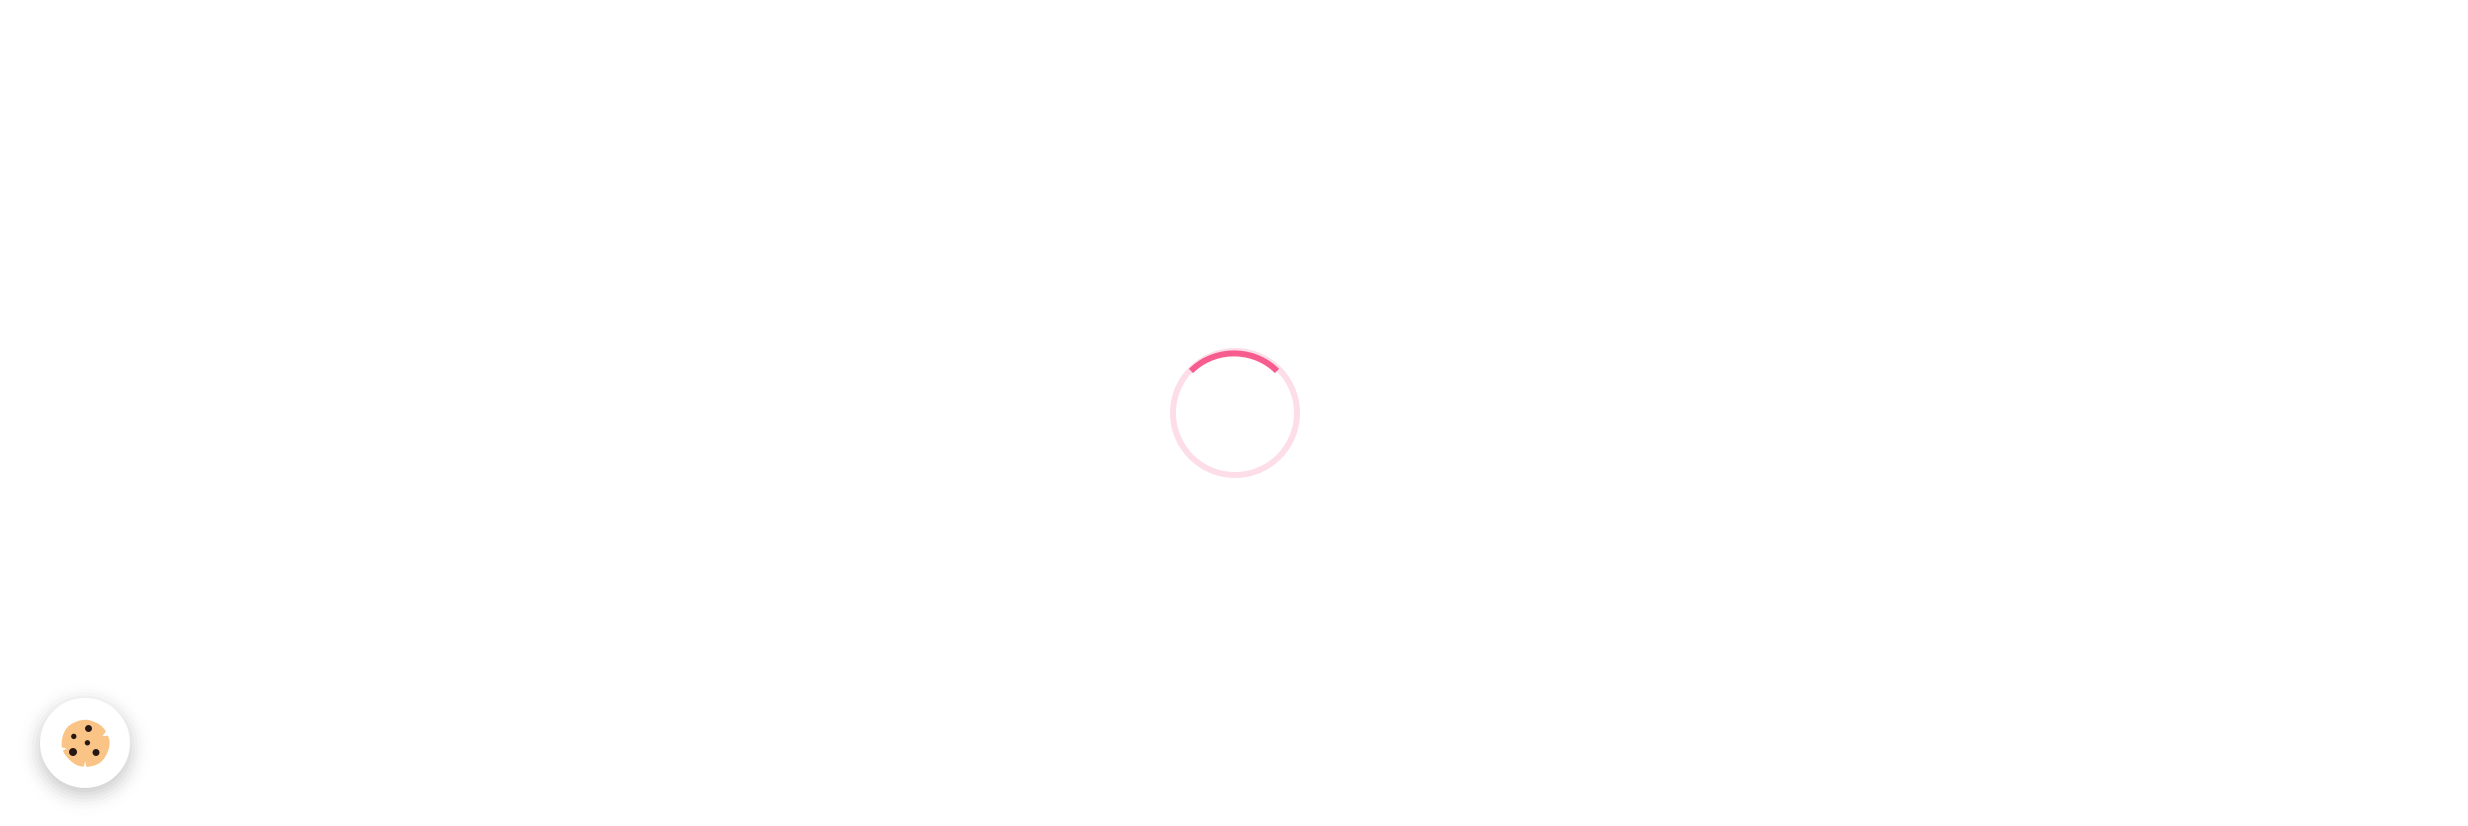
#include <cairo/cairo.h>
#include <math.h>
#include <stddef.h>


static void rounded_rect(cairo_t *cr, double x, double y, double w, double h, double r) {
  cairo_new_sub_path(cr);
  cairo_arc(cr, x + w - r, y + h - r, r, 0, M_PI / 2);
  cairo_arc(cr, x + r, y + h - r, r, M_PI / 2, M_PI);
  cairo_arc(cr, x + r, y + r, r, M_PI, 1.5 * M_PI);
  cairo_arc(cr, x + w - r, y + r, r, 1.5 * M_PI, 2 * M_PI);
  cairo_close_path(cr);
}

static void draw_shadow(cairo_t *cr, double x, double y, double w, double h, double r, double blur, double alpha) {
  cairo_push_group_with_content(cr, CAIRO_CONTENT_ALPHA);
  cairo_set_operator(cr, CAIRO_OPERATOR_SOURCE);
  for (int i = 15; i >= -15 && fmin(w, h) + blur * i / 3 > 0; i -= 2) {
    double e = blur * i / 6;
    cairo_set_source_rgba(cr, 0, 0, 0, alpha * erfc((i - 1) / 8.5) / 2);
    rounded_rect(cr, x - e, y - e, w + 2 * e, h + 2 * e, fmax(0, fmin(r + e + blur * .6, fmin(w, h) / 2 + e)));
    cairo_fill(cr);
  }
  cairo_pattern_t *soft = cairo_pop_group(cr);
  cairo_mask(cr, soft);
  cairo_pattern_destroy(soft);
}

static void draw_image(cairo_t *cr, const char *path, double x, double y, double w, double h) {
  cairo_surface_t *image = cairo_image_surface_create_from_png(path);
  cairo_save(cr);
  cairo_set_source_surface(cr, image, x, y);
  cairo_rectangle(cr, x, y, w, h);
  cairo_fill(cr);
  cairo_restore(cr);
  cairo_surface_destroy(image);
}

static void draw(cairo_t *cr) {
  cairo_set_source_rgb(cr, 1, 1, 1);
  cairo_paint(cr);
  cairo_new_path(cr);
  cairo_move_to(cr, 1191, 371);
  cairo_curve_to(cr, 1214.5, 347.5, 1253.5, 347.5, 1277, 371);
  cairo_set_source_rgb(cr, 248 / 255.0, 93 / 255.0, 143 / 255.0);
  cairo_set_line_width(cr, 6);
  cairo_stroke(cr);
  cairo_arc(cr, 1235, 413, 62, 0, 2 * M_PI);
  cairo_set_source_rgba(cr, 248 / 255.0, 93 / 255.0, 143 / 255.0, 0.2);
  cairo_stroke(cr);
  cairo_set_source_rgb(cr, 0, 0, 0);
  draw_shadow(cr, 40, 704, 90, 90, 45, 10, 0.24);
  cairo_set_source_rgb(cr, 1, 1, 1);
  cairo_arc(cr, 85, 743, 45, 0, 2 * M_PI);
  cairo_fill(cr);
  draw_image(cr, "images/1.png", 61, 719, 49, 48);
}

int main(void) {
  cairo_surface_t *surface = cairo_image_surface_create(CAIRO_FORMAT_RGB24, 2468, 826);
  cairo_t *cr = cairo_create(surface);
  cairo_font_options_t *options = cairo_font_options_create();
  cairo_font_options_set_hint_metrics(options, CAIRO_HINT_METRICS_OFF);
  cairo_font_options_set_hint_style(options, CAIRO_HINT_STYLE_NONE);
  cairo_set_font_options(cr, options);
  cairo_set_miter_limit(cr, 4);
  draw(cr);
  cairo_surface_write_to_png(surface, "out.png");
  cairo_font_options_destroy(options);
  cairo_destroy(cr);
  cairo_surface_destroy(surface);
  return 0;
}
